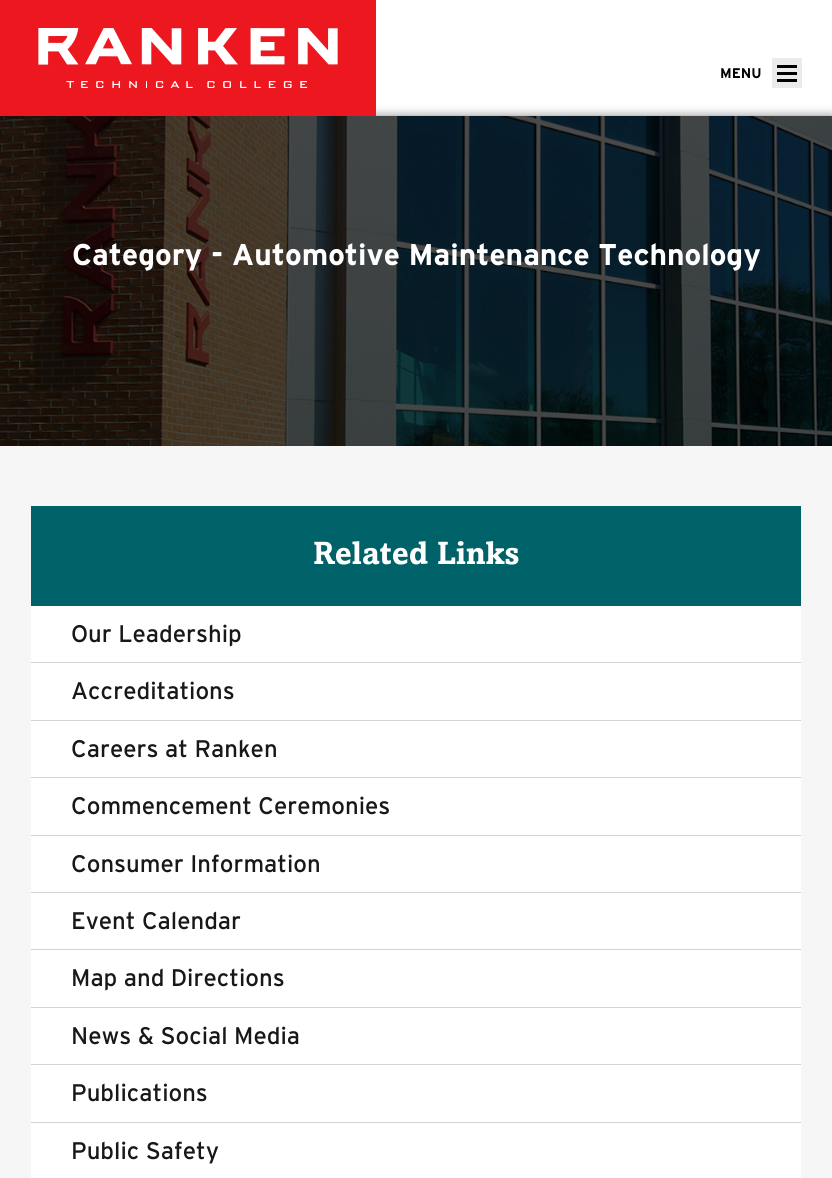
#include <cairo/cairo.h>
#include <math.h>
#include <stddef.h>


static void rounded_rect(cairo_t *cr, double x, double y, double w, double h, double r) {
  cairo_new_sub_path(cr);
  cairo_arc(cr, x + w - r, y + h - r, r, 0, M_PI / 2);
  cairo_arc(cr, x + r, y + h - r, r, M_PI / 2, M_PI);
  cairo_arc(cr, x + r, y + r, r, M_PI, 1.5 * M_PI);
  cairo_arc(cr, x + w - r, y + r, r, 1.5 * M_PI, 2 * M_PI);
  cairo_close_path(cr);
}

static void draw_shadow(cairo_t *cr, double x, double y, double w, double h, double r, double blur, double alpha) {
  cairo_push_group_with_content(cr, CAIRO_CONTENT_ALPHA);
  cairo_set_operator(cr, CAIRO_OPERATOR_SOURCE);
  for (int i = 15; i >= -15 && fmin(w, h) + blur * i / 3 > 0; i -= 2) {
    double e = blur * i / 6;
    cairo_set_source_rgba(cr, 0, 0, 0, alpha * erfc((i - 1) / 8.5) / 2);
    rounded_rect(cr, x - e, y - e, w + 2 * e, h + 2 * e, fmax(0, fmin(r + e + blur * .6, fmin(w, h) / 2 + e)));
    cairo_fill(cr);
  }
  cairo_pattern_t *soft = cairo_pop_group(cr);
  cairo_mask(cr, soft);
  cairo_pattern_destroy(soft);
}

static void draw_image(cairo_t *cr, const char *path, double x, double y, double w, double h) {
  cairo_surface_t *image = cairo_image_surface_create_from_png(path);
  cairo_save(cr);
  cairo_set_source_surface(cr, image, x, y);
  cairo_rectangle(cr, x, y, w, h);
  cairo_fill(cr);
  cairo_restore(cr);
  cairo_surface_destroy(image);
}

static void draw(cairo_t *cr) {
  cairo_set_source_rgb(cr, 1, 1, 1);
  cairo_paint(cr);
  cairo_set_source_rgb(cr, 10 / 255.0, 10 / 255.0, 10 / 255.0);
  draw_shadow(cr, 0, 116, 832, 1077, 0, 5, 0.5);
  cairo_set_source_rgb(cr, 237 / 255.0, 23 / 255.0, 31 / 255.0);
  cairo_rectangle(cr, 0, 0, 376, 116);
  cairo_fill(cr);
  draw_image(cr, "images/1.png", 38, 28, 300, 60);
  cairo_set_source_rgb(cr, 235 / 255.0, 235 / 255.0, 235 / 255.0);
  cairo_rectangle(cr, 772, 58, 30, 30);
  cairo_fill(cr);
  cairo_set_source_rgb(cr, 0, 0, 0);
  cairo_rectangle(cr, 777, 79, 20, 3);
  cairo_fill(cr);
  cairo_rectangle(cr, 777, 72, 20, 3);
  cairo_fill(cr);
  cairo_rectangle(cr, 777, 65, 20, 3);
  cairo_fill(cr);
  cairo_set_source_rgb(cr, 246 / 255.0, 246 / 255.0, 246 / 255.0);
  cairo_rectangle(cr, 0, 446, 832, 732);
  cairo_fill(cr);
  draw_image(cr, "images/2.png", 0, 116, 832, 330);
  cairo_set_source_rgb(cr, 0, 98 / 255.0, 105 / 255.0);
  cairo_rectangle(cr, 31, 506, 770, 100);
  cairo_fill(cr);
  cairo_set_source_rgb(cr, 1, 1, 1);
  cairo_rectangle(cr, 31, 606, 770, 56);
  cairo_fill(cr);
  cairo_set_source_rgb(cr, 211 / 255.0, 211 / 255.0, 211 / 255.0);
  cairo_rectangle(cr, 31, 662, 770, 1);
  cairo_fill(cr);
  cairo_set_source_rgb(cr, 1, 1, 1);
  cairo_rectangle(cr, 31, 663, 770, 57);
  cairo_fill(cr);
  cairo_set_source_rgb(cr, 211 / 255.0, 211 / 255.0, 211 / 255.0);
  cairo_rectangle(cr, 31, 720, 770, 1);
  cairo_fill(cr);
  cairo_set_source_rgb(cr, 1, 1, 1);
  cairo_rectangle(cr, 31, 721, 770, 56);
  cairo_fill(cr);
  cairo_set_source_rgb(cr, 211 / 255.0, 211 / 255.0, 211 / 255.0);
  cairo_rectangle(cr, 31, 777, 770, 1);
  cairo_fill(cr);
  cairo_set_source_rgb(cr, 1, 1, 1);
  cairo_rectangle(cr, 31, 778, 770, 57);
  cairo_fill(cr);
  cairo_set_source_rgb(cr, 211 / 255.0, 211 / 255.0, 211 / 255.0);
  cairo_rectangle(cr, 31, 835, 770, 1);
  cairo_fill(cr);
  cairo_set_source_rgb(cr, 1, 1, 1);
  cairo_rectangle(cr, 31, 836, 770, 56);
  cairo_fill(cr);
  cairo_set_source_rgb(cr, 211 / 255.0, 211 / 255.0, 211 / 255.0);
  cairo_rectangle(cr, 31, 892, 770, 1);
  cairo_fill(cr);
  cairo_set_source_rgb(cr, 1, 1, 1);
  cairo_rectangle(cr, 31, 893, 770, 56);
  cairo_fill(cr);
  cairo_set_source_rgb(cr, 211 / 255.0, 211 / 255.0, 211 / 255.0);
  cairo_rectangle(cr, 31, 949, 770, 1);
  cairo_fill(cr);
  cairo_set_source_rgb(cr, 1, 1, 1);
  cairo_rectangle(cr, 31, 950, 770, 57);
  cairo_fill(cr);
  cairo_set_source_rgb(cr, 211 / 255.0, 211 / 255.0, 211 / 255.0);
  cairo_rectangle(cr, 31, 1007, 770, 1);
  cairo_fill(cr);
  cairo_set_source_rgb(cr, 1, 1, 1);
  cairo_rectangle(cr, 31, 1008, 770, 56);
  cairo_fill(cr);
  cairo_set_source_rgb(cr, 211 / 255.0, 211 / 255.0, 211 / 255.0);
  cairo_rectangle(cr, 31, 1064, 770, 1);
  cairo_fill(cr);
  cairo_set_source_rgb(cr, 1, 1, 1);
  cairo_rectangle(cr, 31, 1065, 770, 57);
  cairo_fill(cr);
  cairo_set_source_rgb(cr, 211 / 255.0, 211 / 255.0, 211 / 255.0);
  cairo_rectangle(cr, 31, 1122, 770, 1);
  cairo_fill(cr);
  cairo_set_source_rgb(cr, 1, 1, 1);
  cairo_rectangle(cr, 31, 1123, 770, 55);
  cairo_fill(cr);
  cairo_select_font_face(cr, "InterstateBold", CAIRO_FONT_SLANT_NORMAL, CAIRO_FONT_WEIGHT_BOLD);
  cairo_set_font_size(cr, 14);
  cairo_set_source_rgb(cr, 0, 0, 0);
  cairo_move_to(cr, 720, 78);
  cairo_show_text(cr, "MENU");
  cairo_set_font_size(cr, 30);
  cairo_set_source_rgb(cr, 1, 1, 1);
  cairo_move_to(cr, 72, 265);
  cairo_show_text(cr, "Category - Automotive Maintenance Technology");
  cairo_select_font_face(cr, "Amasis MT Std", CAIRO_FONT_SLANT_NORMAL, CAIRO_FONT_WEIGHT_BOLD);
  cairo_set_font_size(cr, 32);
  cairo_move_to(cr, 313, 564);
  cairo_show_text(cr, "Related Links");
  cairo_select_font_face(cr, "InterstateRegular", CAIRO_FONT_SLANT_NORMAL, CAIRO_FONT_WEIGHT_NORMAL);
  cairo_set_font_size(cr, 24);
  cairo_set_source_rgb(cr, 25 / 255.0, 24 / 255.0, 24 / 255.0);
  cairo_move_to(cr, 71, 642);
  cairo_show_text(cr, "Our Leadership");
  cairo_move_to(cr, 71, 699);
  cairo_show_text(cr, "Accreditations");
  cairo_move_to(cr, 71, 757);
  cairo_show_text(cr, "Careers at Ranken");
  cairo_move_to(cr, 71, 814);
  cairo_show_text(cr, "Commencement Ceremonies");
  cairo_move_to(cr, 71, 872);
  cairo_show_text(cr, "Consumer Information");
  cairo_move_to(cr, 71, 929);
  cairo_show_text(cr, "Event Calendar");
  cairo_move_to(cr, 71, 986);
  cairo_show_text(cr, "Map and Directions");
  cairo_move_to(cr, 71, 1044);
  cairo_show_text(cr, "News & Social Media");
  cairo_move_to(cr, 71, 1101);
  cairo_show_text(cr, "Publications");
  cairo_move_to(cr, 71, 1159);
  cairo_show_text(cr, "Public Safety");
}

int main(void) {
  cairo_surface_t *surface = cairo_image_surface_create(CAIRO_FORMAT_RGB24, 832, 1178);
  cairo_t *cr = cairo_create(surface);
  cairo_font_options_t *options = cairo_font_options_create();
  cairo_font_options_set_hint_metrics(options, CAIRO_HINT_METRICS_OFF);
  cairo_font_options_set_hint_style(options, CAIRO_HINT_STYLE_NONE);
  cairo_set_font_options(cr, options);
  cairo_set_miter_limit(cr, 4);
  draw(cr);
  cairo_surface_write_to_png(surface, "out.png");
  cairo_font_options_destroy(options);
  cairo_destroy(cr);
  cairo_surface_destroy(surface);
  return 0;
}
